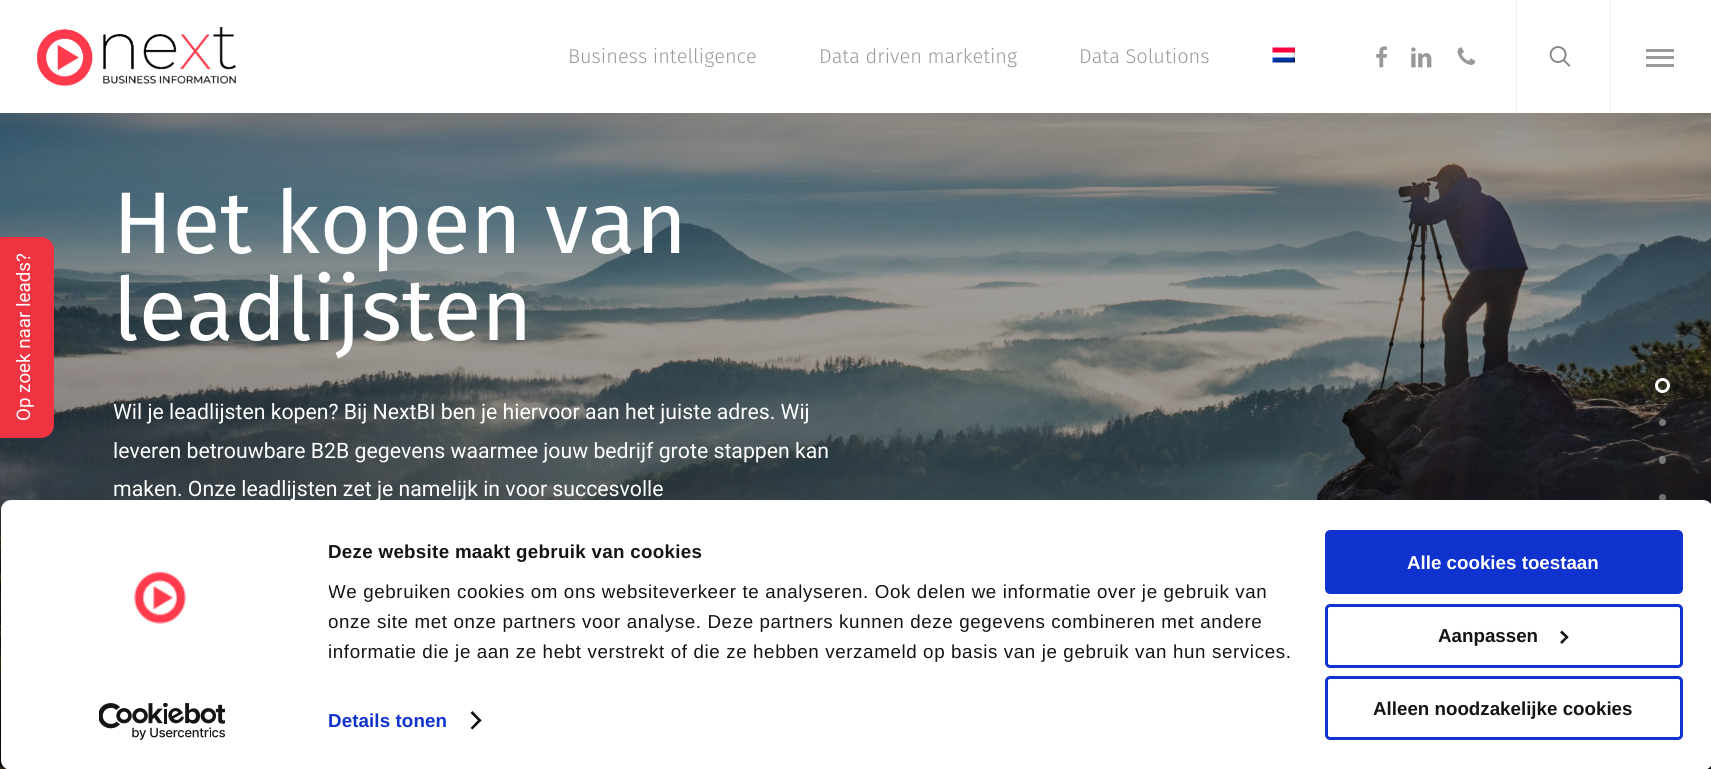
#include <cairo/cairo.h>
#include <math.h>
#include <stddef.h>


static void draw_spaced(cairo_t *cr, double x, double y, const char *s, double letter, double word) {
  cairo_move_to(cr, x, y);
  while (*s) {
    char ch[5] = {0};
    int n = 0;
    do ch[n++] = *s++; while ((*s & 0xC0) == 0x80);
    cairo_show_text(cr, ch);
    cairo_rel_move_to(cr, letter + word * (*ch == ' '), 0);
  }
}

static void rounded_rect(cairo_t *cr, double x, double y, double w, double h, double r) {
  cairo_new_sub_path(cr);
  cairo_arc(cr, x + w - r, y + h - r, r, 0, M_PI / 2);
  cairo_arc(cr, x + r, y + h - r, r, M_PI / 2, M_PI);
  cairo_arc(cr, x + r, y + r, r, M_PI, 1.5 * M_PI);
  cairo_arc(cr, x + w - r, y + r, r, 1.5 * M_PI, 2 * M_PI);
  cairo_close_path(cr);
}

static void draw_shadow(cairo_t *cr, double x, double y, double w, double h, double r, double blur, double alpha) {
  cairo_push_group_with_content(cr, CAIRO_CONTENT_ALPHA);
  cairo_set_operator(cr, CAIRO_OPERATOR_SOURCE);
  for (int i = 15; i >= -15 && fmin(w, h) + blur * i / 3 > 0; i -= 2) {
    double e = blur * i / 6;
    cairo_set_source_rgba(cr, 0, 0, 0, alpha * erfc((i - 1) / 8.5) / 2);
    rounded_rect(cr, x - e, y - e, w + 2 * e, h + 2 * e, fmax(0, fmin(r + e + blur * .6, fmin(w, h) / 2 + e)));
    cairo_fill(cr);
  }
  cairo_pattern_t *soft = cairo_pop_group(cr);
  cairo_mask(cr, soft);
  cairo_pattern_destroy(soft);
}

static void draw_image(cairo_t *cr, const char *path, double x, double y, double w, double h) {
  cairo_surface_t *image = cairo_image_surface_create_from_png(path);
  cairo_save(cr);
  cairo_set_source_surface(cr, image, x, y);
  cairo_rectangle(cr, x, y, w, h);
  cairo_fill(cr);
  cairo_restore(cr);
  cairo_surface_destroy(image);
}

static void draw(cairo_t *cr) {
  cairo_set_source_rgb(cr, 1, 1, 1);
  cairo_paint(cr);
  draw_image(cr, "images/7.png", 0, 113, 1711, 656);
  cairo_set_source_rgb(cr, 0, 0, 0);
  draw_shadow(cr, 0, 4, 1711, 112, 0, 28, 0.15);
  cairo_set_source_rgb(cr, 1, 1, 1);
  cairo_rectangle(cr, 0, 0, 1711, 113);
  cairo_fill(cr);
  draw_image(cr, "images/1.png", 37, 27, 199, 59);
  draw_image(cr, "images/2.png", 1272, 47, 23, 16);
  draw_image(cr, "images/3.png", 1376, 46, 11, 22);
  draw_image(cr, "images/4.png", 1411, 47, 21, 21);
  draw_image(cr, "images/5.png", 1457, 47, 19, 18);
  cairo_set_source_rgb(cr, 237 / 255.0, 237 / 255.0, 237 / 255.0);
  cairo_rectangle(cr, 1516, 0, 1, 113);
  cairo_fill(cr);
  draw_image(cr, "images/6.png", 1549, 46, 22, 21);
  cairo_rectangle(cr, 1610, 0, 1, 113);
  cairo_fill(cr);
  cairo_set_source_rgb(cr, 153 / 255.0, 153 / 255.0, 153 / 255.0);
  cairo_rectangle(cr, 1646, 49, 28, 3);
  cairo_fill(cr);
  cairo_rectangle(cr, 1646, 64, 28, 3);
  cairo_fill(cr);
  cairo_rectangle(cr, 1646, 56, 28, 3);
  cairo_fill(cr);
  cairo_set_source_rgb(cr, 239 / 255.0, 51 / 255.0, 64 / 255.0);
  cairo_new_path(cr);
  cairo_move_to(cr, -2, 438);
  cairo_line_to(cr, -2, 237);
  cairo_line_to(cr, 41, 237);
  cairo_curve_to(cr, 48, 237, 54, 243, 54, 250);
  cairo_line_to(cr, 54, 425);
  cairo_curve_to(cr, 54, 432, 48, 438, 41, 438);
  cairo_close_path(cr);
  cairo_fill(cr);
  cairo_arc(cr, 1662.5, 385.5, 6, 0, 2 * M_PI);
  cairo_set_source_rgb(cr, 1, 1, 1);
  cairo_set_line_width(cr, 3);
  cairo_stroke(cr);
  cairo_set_source_rgba(cr, 1, 1, 1, 0.4);
  cairo_arc(cr, 1662.5, 422.5, 3.5, 0, 2 * M_PI);
  cairo_fill(cr);
  rounded_rect(cr, 1659, 456, 7, 8, 3.5);
  cairo_fill(cr);
  cairo_arc(cr, 1662.5, 497.5, 3.5, 0, 2 * M_PI);
  cairo_fill(cr);
  cairo_set_source_rgb(cr, 0, 0, 0);
  draw_shadow(cr, 1, 538, 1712, 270, 10, 44, 0.3);
  cairo_set_source_rgb(cr, 1, 1, 1);
  rounded_rect(cr, 1, 500, 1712, 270, 10);
  cairo_fill(cr);
  draw_image(cr, "images/8.png", 134, 571, 52, 53);
  draw_image(cr, "images/9.png", 99, 703, 126, 37);
  cairo_set_source_rgb(cr, 20 / 255.0, 20 / 255.0, 20 / 255.0);
  cairo_new_path(cr);
  cairo_move_to(cr, 472.5, 711);
  cairo_line_to(cr, 481.5, 720.5);
  cairo_line_to(cr, 479.5, 722);
  cairo_line_to(cr, 470.5, 713);
  cairo_close_path(cr);
  cairo_fill(cr);
  cairo_new_path(cr);
  cairo_move_to(cr, 479.5, 718.5);
  cairo_line_to(cr, 481.5, 720.5);
  cairo_line_to(cr, 472.5, 729.5);
  cairo_line_to(cr, 470.5, 728);
  cairo_close_path(cr);
  cairo_fill(cr);
  cairo_set_source_rgb(cr, 16 / 255.0, 50 / 255.0, 207 / 255.0);
  rounded_rect(cr, 1326.5, 531.5, 355, 61, 3.5);
  cairo_fill_preserve(cr);
  cairo_stroke(cr);
  rounded_rect(cr, 1326.5, 605.5, 355, 61, 3.5);
  cairo_stroke(cr);
  cairo_set_source_rgb(cr, 20 / 255.0, 20 / 255.0, 20 / 255.0);
  cairo_new_path(cr);
  cairo_move_to(cr, 1562, 630.5);
  cairo_line_to(cr, 1568.5, 637);
  cairo_line_to(cr, 1567, 639);
  cairo_line_to(cr, 1560, 632.5);
  cairo_close_path(cr);
  cairo_fill(cr);
  cairo_new_path(cr);
  cairo_move_to(cr, 1567, 635.5);
  cairo_line_to(cr, 1568.5, 637);
  cairo_line_to(cr, 1562, 644);
  cairo_line_to(cr, 1560, 642);
  cairo_close_path(cr);
  cairo_fill(cr);
  rounded_rect(cr, 1326.5, 677.5, 355, 61, 3.5);
  cairo_set_source_rgb(cr, 16 / 255.0, 50 / 255.0, 207 / 255.0);
  cairo_stroke(cr);
  cairo_select_font_face(cr, "Fira Sans Light", CAIRO_FONT_SLANT_NORMAL, CAIRO_FONT_WEIGHT_NORMAL);
  cairo_set_font_size(cr, 20);
  cairo_set_source_rgb(cr, 153 / 255.0, 153 / 255.0, 153 / 255.0);
  cairo_move_to(cr, 568, 63);
  cairo_show_text(cr, "Business intelligence");
  cairo_move_to(cr, 819, 63);
  cairo_show_text(cr, "Data driven marketing");
  cairo_move_to(cr, 1079, 63);
  cairo_show_text(cr, "Data Solutions");
  cairo_select_font_face(cr, "Roboto", CAIRO_FONT_SLANT_NORMAL, CAIRO_FONT_WEIGHT_NORMAL);
  cairo_set_font_size(cr, 18.75);
  cairo_set_source_rgb(cr, 1, 1, 1);
  cairo_save(cr);
  cairo_translate(cr, 30, 421);
  cairo_rotate(cr, -90 * M_PI / 180);
  cairo_move_to(cr, 0, 0);
  cairo_show_text(cr, "Op zoek naar leads?");
  cairo_restore(cr);
  cairo_select_font_face(cr, "Fira Sans", CAIRO_FONT_SLANT_NORMAL, CAIRO_FONT_WEIGHT_NORMAL);
  cairo_set_font_size(cr, 87.5);
  cairo_move_to(cr, 113, 253);
  cairo_show_text(cr, "Het kopen van");
  cairo_move_to(cr, 113, 340);
  cairo_show_text(cr, "leadlijsten");
  cairo_select_font_face(cr, "Roboto", CAIRO_FONT_SLANT_NORMAL, CAIRO_FONT_WEIGHT_NORMAL);
  cairo_set_font_size(cr, 21.25);
  cairo_move_to(cr, 113, 419);
  cairo_show_text(cr, "Wil je leadlijsten kopen? Bij NextBI ben je hiervoor aan het juiste adres. Wij");
  cairo_move_to(cr, 113, 458);
  cairo_show_text(cr, "leveren betrouwbare B2B gegevens waarmee jouw bedrijf grote stappen kan");
  cairo_move_to(cr, 113, 496);
  cairo_show_text(cr, "maken. Onze leadlijsten zet je namelijk in voor succesvolle");
  cairo_save(cr);
  cairo_rectangle(cr, 329, 538, 989, 128);
  cairo_clip(cr);
  cairo_select_font_face(cr, "Liberation Sans", CAIRO_FONT_SLANT_NORMAL, CAIRO_FONT_WEIGHT_BOLD);
  cairo_set_font_size(cr, 18.75);
  cairo_set_source_rgb(cr, 20 / 255.0, 20 / 255.0, 20 / 255.0);
  draw_spaced(cr, 328, 558, "Deze website maakt gebruik van cookies", 0.3, 0);
  cairo_select_font_face(cr, "Liberation Sans", CAIRO_FONT_SLANT_NORMAL, CAIRO_FONT_WEIGHT_NORMAL);
  draw_spaced(cr, 328, 598, "We gebruiken cookies om ons websiteverkeer te analyseren. Ook delen we informatie over je gebruik van", 0.62, 0);
  draw_spaced(cr, 328, 628, "onze site met onze partners voor analyse. Deze partners kunnen deze gegevens combineren met andere", 0.62, 0);
  draw_spaced(cr, 328, 658, "informatie die je aan ze hebt verstrekt of die ze hebben verzameld op basis van je gebruik van hun services.", 0.62, 0);
  cairo_restore(cr);
  cairo_select_font_face(cr, "Liberation Sans", CAIRO_FONT_SLANT_NORMAL, CAIRO_FONT_WEIGHT_BOLD);
  cairo_set_font_size(cr, 18.75);
  cairo_set_source_rgb(cr, 16 / 255.0, 50 / 255.0, 207 / 255.0);
  draw_spaced(cr, 328, 727, "Details tonen", 0.1, 0);
  cairo_set_source_rgb(cr, 1, 1, 1);
  cairo_move_to(cr, 1407, 569);
  cairo_show_text(cr, "Alle cookies toestaan");
  cairo_set_source_rgb(cr, 20 / 255.0, 20 / 255.0, 20 / 255.0);
  cairo_move_to(cr, 1438, 642);
  cairo_show_text(cr, "Aanpassen");
  cairo_move_to(cr, 1373, 715);
  cairo_show_text(cr, "Alleen noodzakelijke cookies");
}

int main(void) {
  cairo_surface_t *surface = cairo_image_surface_create(CAIRO_FORMAT_RGB24, 1711, 769);
  cairo_t *cr = cairo_create(surface);
  cairo_font_options_t *options = cairo_font_options_create();
  cairo_font_options_set_hint_metrics(options, CAIRO_HINT_METRICS_OFF);
  cairo_font_options_set_hint_style(options, CAIRO_HINT_STYLE_NONE);
  cairo_set_font_options(cr, options);
  cairo_set_miter_limit(cr, 4);
  draw(cr);
  cairo_surface_write_to_png(surface, "out.png");
  cairo_font_options_destroy(options);
  cairo_destroy(cr);
  cairo_surface_destroy(surface);
  return 0;
}
